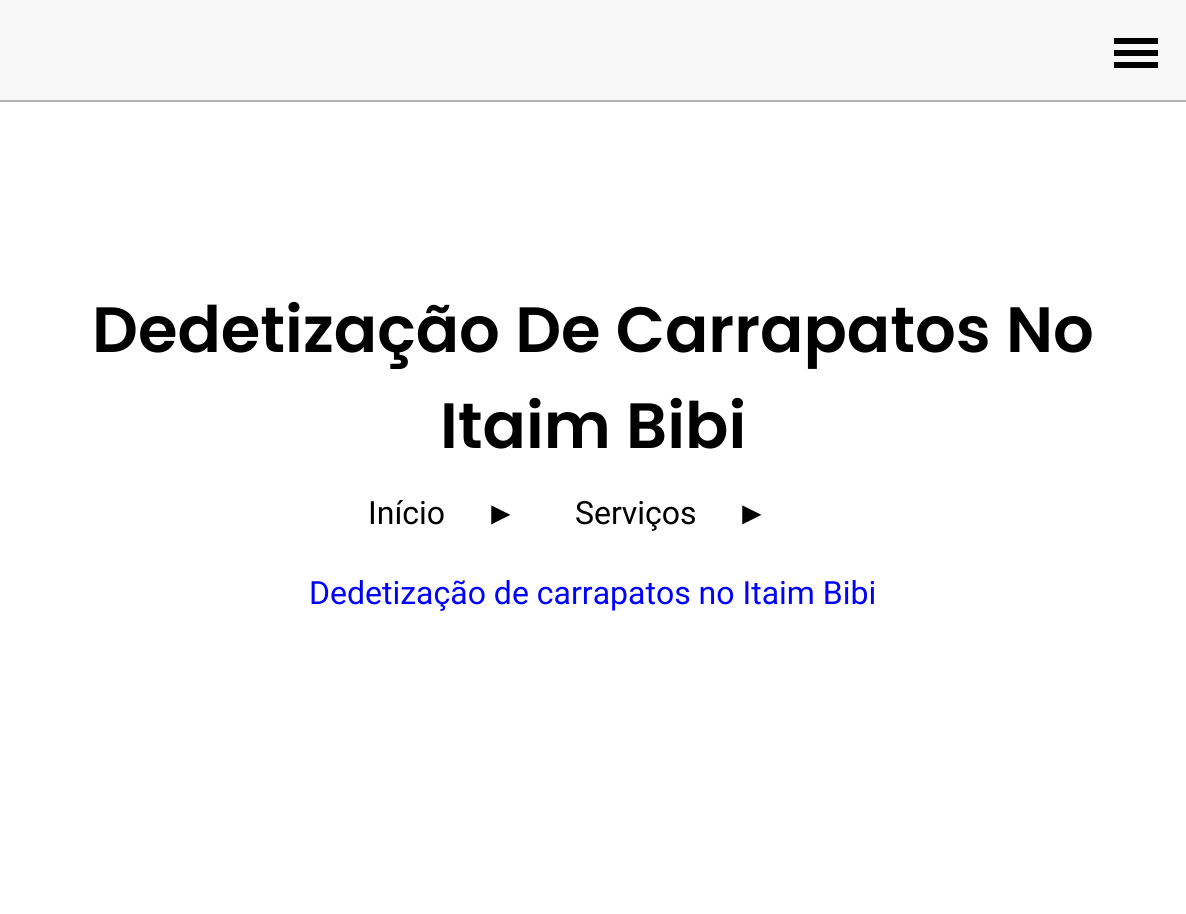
#include <cairo/cairo.h>
#include <math.h>
#include <stddef.h>


static void draw(cairo_t *cr) {
  cairo_set_source_rgb(cr, 1, 1, 1);
  cairo_paint(cr);
  cairo_set_source_rgb(cr, 178 / 255.0, 178 / 255.0, 178 / 255.0);
  cairo_rectangle(cr, 0, 100, 1186, 2);
  cairo_fill(cr);
  cairo_set_source_rgb(cr, 248 / 255.0, 248 / 255.0, 248 / 255.0);
  cairo_rectangle(cr, 0, 0, 1186, 100);
  cairo_fill(cr);
  cairo_set_source_rgb(cr, 0, 0, 0);
  cairo_rectangle(cr, 1114, 38, 44, 6);
  cairo_fill(cr);
  cairo_rectangle(cr, 1114, 50, 44, 6);
  cairo_fill(cr);
  cairo_rectangle(cr, 1114, 62, 44, 6);
  cairo_fill(cr);
  cairo_select_font_face(cr, "Poppins SemiBold", CAIRO_FONT_SLANT_NORMAL, CAIRO_FONT_WEIGHT_NORMAL);
  cairo_set_font_size(cr, 64);
  cairo_move_to(cr, 92, 352);
  cairo_show_text(cr, "Dedetização De Carrapatos No");
  cairo_move_to(cr, 440, 448);
  cairo_show_text(cr, "Itaim Bibi");
  cairo_select_font_face(cr, "Roboto", CAIRO_FONT_SLANT_NORMAL, CAIRO_FONT_WEIGHT_NORMAL);
  cairo_set_font_size(cr, 32);
  cairo_move_to(cr, 368, 524);
  cairo_show_text(cr, "Início");
  cairo_select_font_face(cr, "Liberation Sans", CAIRO_FONT_SLANT_NORMAL, CAIRO_FONT_WEIGHT_NORMAL);
  cairo_move_to(cr, 485, 524);
  cairo_show_text(cr, "►");
  cairo_select_font_face(cr, "Roboto", CAIRO_FONT_SLANT_NORMAL, CAIRO_FONT_WEIGHT_NORMAL);
  cairo_move_to(cr, 575, 524);
  cairo_show_text(cr, "Serviços");
  cairo_select_font_face(cr, "Liberation Sans", CAIRO_FONT_SLANT_NORMAL, CAIRO_FONT_WEIGHT_NORMAL);
  cairo_move_to(cr, 736, 524);
  cairo_show_text(cr, "►");
  cairo_select_font_face(cr, "Roboto", CAIRO_FONT_SLANT_NORMAL, CAIRO_FONT_WEIGHT_NORMAL);
  cairo_set_source_rgb(cr, 0, 0, 1);
  cairo_move_to(cr, 309, 604);
  cairo_show_text(cr, "Dedetização de carrapatos no Itaim Bibi");
}

int main(void) {
  cairo_surface_t *surface = cairo_image_surface_create(CAIRO_FORMAT_RGB24, 1186, 914);
  cairo_t *cr = cairo_create(surface);
  cairo_font_options_t *options = cairo_font_options_create();
  cairo_font_options_set_hint_metrics(options, CAIRO_HINT_METRICS_OFF);
  cairo_font_options_set_hint_style(options, CAIRO_HINT_STYLE_NONE);
  cairo_set_font_options(cr, options);
  cairo_set_miter_limit(cr, 4);
  draw(cr);
  cairo_surface_write_to_png(surface, "out.png");
  cairo_font_options_destroy(options);
  cairo_destroy(cr);
  cairo_surface_destroy(surface);
  return 0;
}
